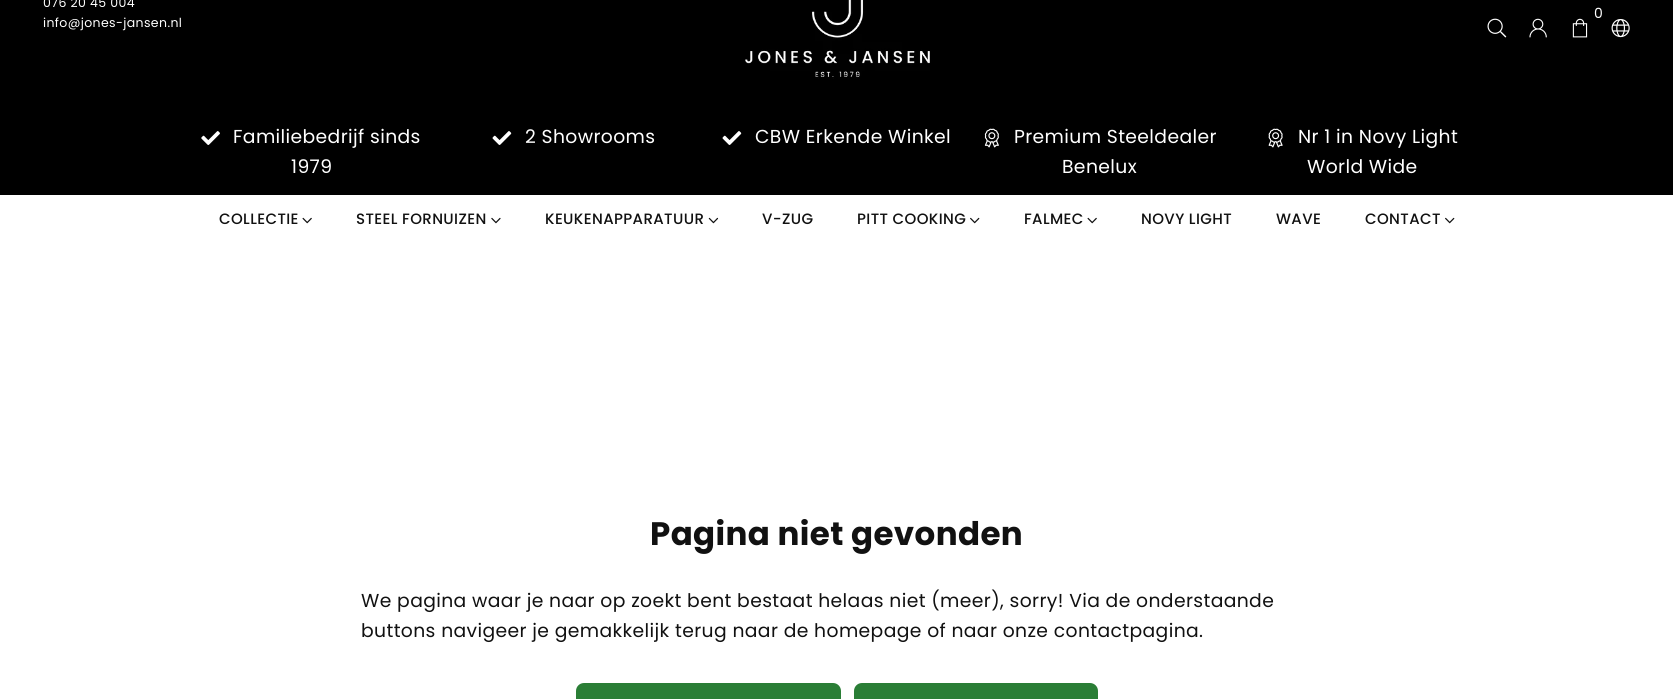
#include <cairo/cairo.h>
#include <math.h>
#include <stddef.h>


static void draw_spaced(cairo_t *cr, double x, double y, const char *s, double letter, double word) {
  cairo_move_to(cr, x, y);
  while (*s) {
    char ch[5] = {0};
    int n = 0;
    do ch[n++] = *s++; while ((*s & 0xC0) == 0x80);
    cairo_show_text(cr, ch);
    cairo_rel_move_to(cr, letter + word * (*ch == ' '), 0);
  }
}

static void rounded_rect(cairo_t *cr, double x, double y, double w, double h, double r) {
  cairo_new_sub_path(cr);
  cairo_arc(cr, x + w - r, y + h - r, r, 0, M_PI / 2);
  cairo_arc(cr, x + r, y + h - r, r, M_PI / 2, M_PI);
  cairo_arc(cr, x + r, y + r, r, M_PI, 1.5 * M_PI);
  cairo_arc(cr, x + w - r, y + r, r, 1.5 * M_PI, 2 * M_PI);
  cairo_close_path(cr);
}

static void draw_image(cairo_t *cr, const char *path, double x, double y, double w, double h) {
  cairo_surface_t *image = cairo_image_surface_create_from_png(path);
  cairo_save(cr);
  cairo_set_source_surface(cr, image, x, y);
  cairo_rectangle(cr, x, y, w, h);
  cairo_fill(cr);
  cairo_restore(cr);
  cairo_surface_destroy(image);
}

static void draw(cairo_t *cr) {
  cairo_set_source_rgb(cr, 1, 1, 1);
  cairo_paint(cr);
  cairo_set_source_rgb(cr, 0, 0, 0);
  cairo_rectangle(cr, 0, 0, 1673, 195);
  cairo_fill(cr);
  draw_image(cr, "images/1.png", 745, 0, 185, 79);
  draw_image(cr, "images/2.png", 1572, 18, 16, 20);
  draw_image(cr, "images/3.png", 1487, 18, 20, 20);
  draw_image(cr, "images/4.png", 1529, 18, 18, 20);
  draw_image(cr, "images/5.png", 1611, 19, 19, 19);
  draw_image(cr, "images/6.png", 201, 131, 19, 14);
  draw_image(cr, "images/7.png", 492, 131, 20, 14);
  draw_image(cr, "images/7.png", 722, 131, 20, 14);
  draw_image(cr, "images/8.png", 984, 128, 15, 20);
  draw_image(cr, "images/9.png", 1268, 128, 15, 20);
  draw_image(cr, "images/10.png", 302, 217, 10, 7);
  draw_image(cr, "images/11.png", 491, 217, 10, 7);
  draw_image(cr, "images/12.png", 708, 217, 11, 7);
  draw_image(cr, "images/13.png", 970, 217, 10, 7);
  draw_image(cr, "images/10.png", 1087, 217, 10, 7);
  draw_image(cr, "images/13.png", 1445, 217, 10, 7);
  cairo_set_source_rgb(cr, 42 / 255.0, 126 / 255.0, 54 / 255.0);
  rounded_rect(cr, 576, 683, 265, 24, 8);
  cairo_fill(cr);
  rounded_rect(cr, 854, 683, 244, 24, 8);
  cairo_fill(cr);
  cairo_select_font_face(cr, "Poppins", CAIRO_FONT_SLANT_NORMAL, CAIRO_FONT_WEIGHT_NORMAL);
  cairo_set_font_size(cr, 12.5);
  cairo_set_source_rgb(cr, 1, 1, 1);
  draw_spaced(cr, 43, 7, "076 20 45 004", 0.38, 0);
  draw_spaced(cr, 43, 27, "info@jones-jansen.nl", 0.38, 0);
  cairo_set_font_size(cr, 14);
  draw_spaced(cr, 1594, 18, "0", 0.38, 0);
  cairo_set_font_size(cr, 18.75);
  draw_spaced(cr, 233, 143, "Familiebedrijf sinds", 0.38, 0);
  draw_spaced(cr, 291, 173, "1979", 0.38, 0);
  draw_spaced(cr, 525, 143, "2 Showrooms", 0.38, 0);
  draw_spaced(cr, 755, 143, "CBW Erkende Winkel", 0.38, 0);
  draw_spaced(cr, 1014, 143, "Premium Steeldealer", 0.38, 0);
  draw_spaced(cr, 1062, 173, "Benelux", 0.38, 0);
  draw_spaced(cr, 1298, 143, "Nr 1 in Novy Light", 0.38, 0);
  draw_spaced(cr, 1307, 173, "World Wide", 0.38, 0);
  cairo_select_font_face(cr, "Poppins Medium", CAIRO_FONT_SLANT_NORMAL, CAIRO_FONT_WEIGHT_NORMAL);
  cairo_set_font_size(cr, 15);
  cairo_set_source_rgb(cr, 17 / 255.0, 17 / 255.0, 17 / 255.0);
  draw_spaced(cr, 219, 224, "COLLECTIE", 0.38, 0);
  draw_spaced(cr, 356, 224, "STEEL FORNUIZEN", 0.38, 0);
  draw_spaced(cr, 545, 224, "KEUKENAPPARATUUR", 0.38, 0);
  draw_spaced(cr, 762, 224, "V-ZUG", 0.38, 0);
  draw_spaced(cr, 857, 224, "PITT COOKING", 0.38, 0);
  draw_spaced(cr, 1024, 224, "FALMEC", 0.38, 0);
  draw_spaced(cr, 1141, 224, "NOVY LIGHT", 0.38, 0);
  draw_spaced(cr, 1276, 224, "WAVE", 0.38, 0);
  draw_spaced(cr, 1365, 224, "CONTACT", 0.38, 0);
  cairo_select_font_face(cr, "Poppins", CAIRO_FONT_SLANT_NORMAL, CAIRO_FONT_WEIGHT_BOLD);
  cairo_set_font_size(cr, 32.5);
  draw_spaced(cr, 650, 545, "Pagina niet gevonden", 0.38, 0);
  cairo_select_font_face(cr, "Poppins", CAIRO_FONT_SLANT_NORMAL, CAIRO_FONT_WEIGHT_NORMAL);
  cairo_set_font_size(cr, 18.75);
  draw_spaced(cr, 361, 607, "We pagina waar je naar op zoekt bent bestaat helaas niet (meer), sorry! Via de onderstaande", 0.38, 0);
  draw_spaced(cr, 361, 637, "buttons navigeer je gemakkelijk terug naar de homepage of naar onze contactpagina.", 0.38, 0);
}

int main(void) {
  cairo_surface_t *surface = cairo_image_surface_create(CAIRO_FORMAT_RGB24, 1673, 699);
  cairo_t *cr = cairo_create(surface);
  cairo_font_options_t *options = cairo_font_options_create();
  cairo_font_options_set_hint_metrics(options, CAIRO_HINT_METRICS_OFF);
  cairo_font_options_set_hint_style(options, CAIRO_HINT_STYLE_NONE);
  cairo_set_font_options(cr, options);
  cairo_set_miter_limit(cr, 4);
  draw(cr);
  cairo_surface_write_to_png(surface, "out.png");
  cairo_font_options_destroy(options);
  cairo_destroy(cr);
  cairo_surface_destroy(surface);
  return 0;
}
